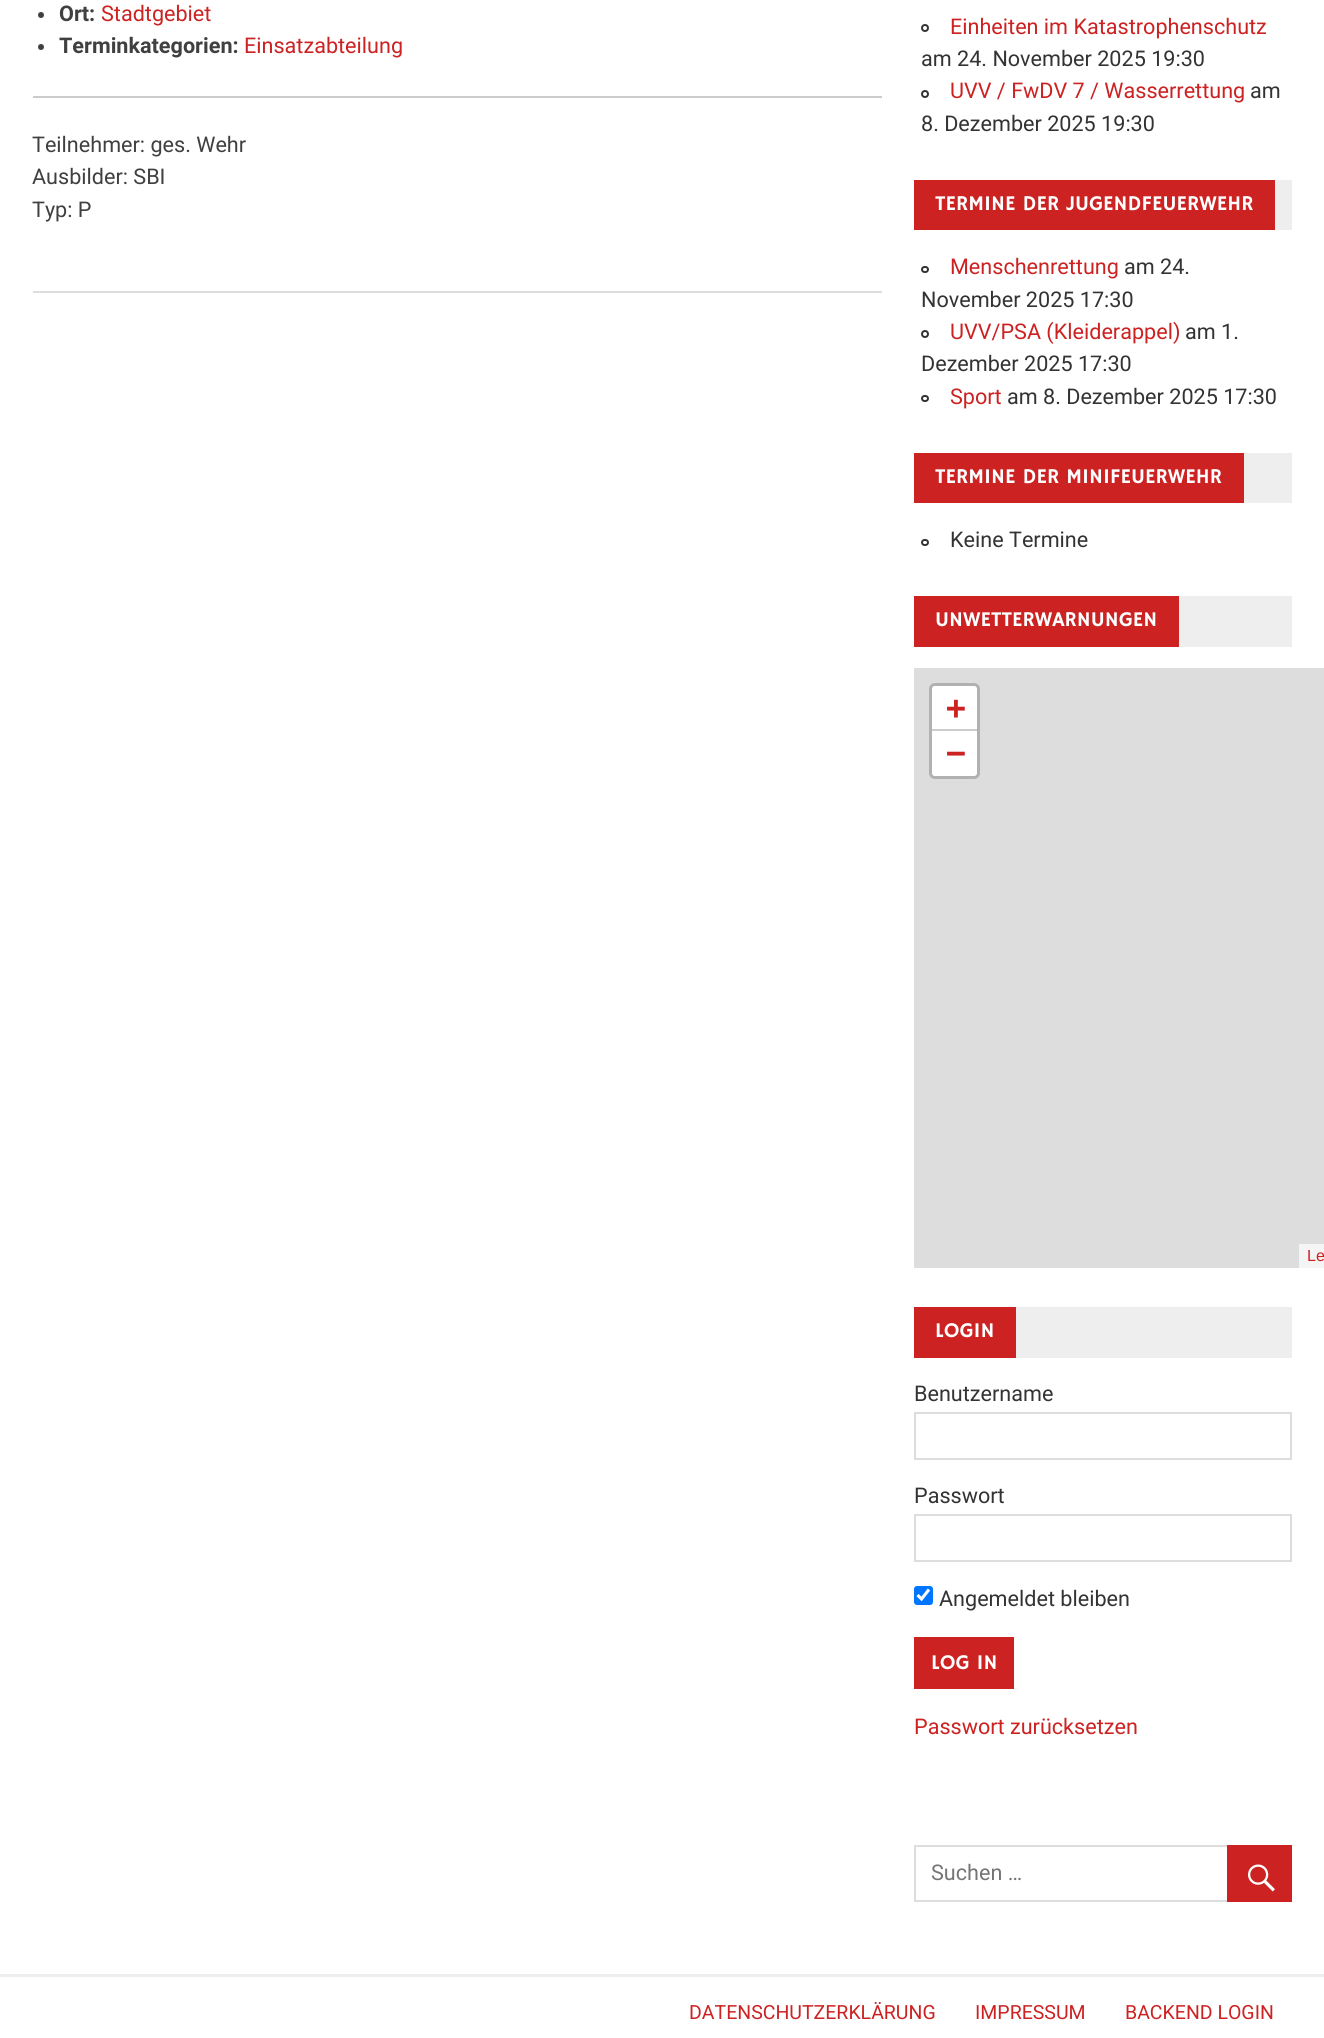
#include <cairo/cairo.h>
#include <math.h>
#include <stddef.h>


static void rounded_rect(cairo_t *cr, double x, double y, double w, double h, double r) {
  cairo_new_sub_path(cr);
  cairo_arc(cr, x + w - r, y + h - r, r, 0, M_PI / 2);
  cairo_arc(cr, x + r, y + h - r, r, M_PI / 2, M_PI);
  cairo_arc(cr, x + r, y + r, r, M_PI, 1.5 * M_PI);
  cairo_arc(cr, x + w - r, y + r, r, 1.5 * M_PI, 2 * M_PI);
  cairo_close_path(cr);
}

static void draw_image(cairo_t *cr, const char *path, double x, double y, double w, double h) {
  cairo_surface_t *image = cairo_image_surface_create_from_png(path);
  cairo_save(cr);
  cairo_set_source_surface(cr, image, x, y);
  cairo_rectangle(cr, x, y, w, h);
  cairo_fill(cr);
  cairo_restore(cr);
  cairo_surface_destroy(image);
}

static void draw(cairo_t *cr) {
  cairo_set_source_rgb(cr, 1, 1, 1);
  cairo_paint(cr);
  cairo_set_source_rgb(cr, 64 / 255.0, 64 / 255.0, 64 / 255.0);
  cairo_arc(cr, 41, 15, 3, 0, 2 * M_PI);
  cairo_fill(cr);
  cairo_arc(cr, 41, 47, 3, 0, 2 * M_PI);
  cairo_fill(cr);
  cairo_set_source_rgb(cr, 204 / 255.0, 204 / 255.0, 204 / 255.0);
  cairo_rectangle(cr, 33, 96, 849, 2);
  cairo_fill(cr);
  cairo_set_source_rgb(cr, 221 / 255.0, 221 / 255.0, 221 / 255.0);
  cairo_rectangle(cr, 33, 291, 849, 2);
  cairo_fill(cr);
  cairo_arc(cr, 925, 28, 3, 0, 2 * M_PI);
  cairo_set_source_rgb(cr, 51 / 255.0, 51 / 255.0, 51 / 255.0);
  cairo_stroke(cr);
  cairo_arc(cr, 925, 94, 3, 0, 2 * M_PI);
  cairo_stroke(cr);
  cairo_set_source_rgb(cr, 238 / 255.0, 238 / 255.0, 238 / 255.0);
  cairo_rectangle(cr, 1275, 180, 17, 50);
  cairo_fill(cr);
  cairo_set_source_rgb(cr, 204 / 255.0, 34 / 255.0, 34 / 255.0);
  cairo_rectangle(cr, 914, 180, 361, 50);
  cairo_fill(cr);
  rounded_rect(cr, 922, 267, 6, 5, 2.5);
  cairo_set_source_rgb(cr, 51 / 255.0, 51 / 255.0, 51 / 255.0);
  cairo_stroke(cr);
  cairo_arc(cr, 925, 334, 3, 0, 2 * M_PI);
  cairo_stroke(cr);
  rounded_rect(cr, 922, 396, 6, 5, 2.5);
  cairo_stroke(cr);
  cairo_set_source_rgb(cr, 238 / 255.0, 238 / 255.0, 238 / 255.0);
  cairo_rectangle(cr, 1244, 453, 48, 50);
  cairo_fill(cr);
  cairo_set_source_rgb(cr, 204 / 255.0, 34 / 255.0, 34 / 255.0);
  cairo_rectangle(cr, 914, 453, 330, 50);
  cairo_fill(cr);
  rounded_rect(cr, 922, 540, 6, 5, 2.5);
  cairo_set_source_rgb(cr, 51 / 255.0, 51 / 255.0, 51 / 255.0);
  cairo_stroke(cr);
  cairo_set_source_rgb(cr, 238 / 255.0, 238 / 255.0, 238 / 255.0);
  cairo_rectangle(cr, 1179, 596, 113, 51);
  cairo_fill(cr);
  cairo_set_source_rgb(cr, 204 / 255.0, 34 / 255.0, 34 / 255.0);
  cairo_rectangle(cr, 914, 596, 265, 51);
  cairo_fill(cr);
  cairo_set_source_rgb(cr, 221 / 255.0, 221 / 255.0, 221 / 255.0);
  cairo_rectangle(cr, 914, 668, 410, 600);
  cairo_fill(cr);
  rounded_rect(cr, 930.5, 684.5, 48, 93, 4.5);
  cairo_set_source_rgb(cr, 177 / 255.0, 177 / 255.0, 177 / 255.0);
  cairo_set_line_width(cr, 3);
  cairo_stroke(cr);
  cairo_set_source_rgb(cr, 1, 1, 1);
  cairo_new_path(cr);
  cairo_move_to(cr, 935, 686);
  cairo_line_to(cr, 974, 686);
  cairo_curve_to(cr, 975.5, 686, 977, 687.5, 977, 689);
  cairo_line_to(cr, 977, 731);
  cairo_line_to(cr, 932, 731);
  cairo_line_to(cr, 932, 689);
  cairo_curve_to(cr, 932, 687.5, 933.5, 686, 935, 686);
  cairo_close_path(cr);
  cairo_fill(cr);
  cairo_set_source_rgb(cr, 204 / 255.0, 204 / 255.0, 204 / 255.0);
  cairo_rectangle(cr, 932, 729, 45, 2);
  cairo_fill(cr);
  cairo_set_source_rgb(cr, 1, 1, 1);
  cairo_new_path(cr);
  cairo_move_to(cr, 932, 731);
  cairo_line_to(cr, 977, 731);
  cairo_line_to(cr, 977, 773);
  cairo_curve_to(cr, 977, 774.5, 975.5, 776, 974, 776);
  cairo_line_to(cr, 935, 776);
  cairo_curve_to(cr, 933.5, 776, 932, 774.5, 932, 773);
  cairo_close_path(cr);
  cairo_fill(cr);
  cairo_set_source_rgb(cr, 245 / 255.0, 245 / 255.0, 245 / 255.0);
  cairo_rectangle(cr, 1299, 1244, 25, 24);
  cairo_fill(cr);
  cairo_set_source_rgb(cr, 238 / 255.0, 238 / 255.0, 238 / 255.0);
  cairo_rectangle(cr, 1016, 1307, 276, 51);
  cairo_fill(cr);
  cairo_set_source_rgb(cr, 204 / 255.0, 34 / 255.0, 34 / 255.0);
  cairo_rectangle(cr, 914, 1307, 102, 51);
  cairo_fill(cr);
  cairo_rectangle(cr, 915, 1413, 376, 46);
  cairo_set_source_rgb(cr, 221 / 255.0, 221 / 255.0, 221 / 255.0);
  cairo_set_line_width(cr, 2);
  cairo_stroke(cr);
  cairo_rectangle(cr, 915, 1515, 376, 46);
  cairo_stroke(cr);
  cairo_set_source_rgb(cr, 0, 117 / 255.0, 1);
  rounded_rect(cr, 914, 1586, 19, 19, 3);
  cairo_fill(cr);
  cairo_new_path(cr);
  cairo_move_to(cr, 917.5, 1595);
  cairo_line_to(cr, 921.5, 1599);
  cairo_line_to(cr, 929, 1589.5);
  cairo_set_source_rgb(cr, 1, 1, 1);
  cairo_set_line_width(cr, 3.1);
  cairo_stroke(cr);
  cairo_set_source_rgb(cr, 204 / 255.0, 34 / 255.0, 34 / 255.0);
  cairo_rectangle(cr, 914, 1637, 100, 52);
  cairo_fill(cr);
  cairo_rectangle(cr, 915, 1846, 376, 55);
  cairo_set_source_rgb(cr, 221 / 255.0, 221 / 255.0, 221 / 255.0);
  cairo_set_line_width(cr, 2);
  cairo_stroke(cr);
  cairo_set_source_rgb(cr, 204 / 255.0, 34 / 255.0, 34 / 255.0);
  cairo_rectangle(cr, 1227, 1845, 65, 57);
  cairo_fill(cr);
  draw_image(cr, "images/1.png", 1248, 1864, 27, 28);
  cairo_set_source_rgb(cr, 238 / 255.0, 238 / 255.0, 238 / 255.0);
  cairo_rectangle(cr, 0, 1974, 1324, 3);
  cairo_fill(cr);
  cairo_select_font_face(cr, "Roboto", CAIRO_FONT_SLANT_NORMAL, CAIRO_FONT_WEIGHT_BOLD);
  cairo_set_font_size(cr, 21.6);
  cairo_set_source_rgb(cr, 64 / 255.0, 64 / 255.0, 64 / 255.0);
  cairo_move_to(cr, 59, 21);
  cairo_show_text(cr, "Ort:");
  cairo_select_font_face(cr, "Roboto", CAIRO_FONT_SLANT_NORMAL, CAIRO_FONT_WEIGHT_NORMAL);
  cairo_set_source_rgb(cr, 204 / 255.0, 34 / 255.0, 34 / 255.0);
  cairo_move_to(cr, 101, 21);
  cairo_show_text(cr, "Stadtgebiet");
  cairo_select_font_face(cr, "Roboto", CAIRO_FONT_SLANT_NORMAL, CAIRO_FONT_WEIGHT_BOLD);
  cairo_set_source_rgb(cr, 64 / 255.0, 64 / 255.0, 64 / 255.0);
  cairo_move_to(cr, 59, 53);
  cairo_show_text(cr, "Terminkategorien:");
  cairo_select_font_face(cr, "Roboto", CAIRO_FONT_SLANT_NORMAL, CAIRO_FONT_WEIGHT_NORMAL);
  cairo_set_source_rgb(cr, 204 / 255.0, 34 / 255.0, 34 / 255.0);
  cairo_move_to(cr, 244, 53);
  cairo_show_text(cr, "Einsatzabteilung");
  cairo_set_source_rgb(cr, 64 / 255.0, 64 / 255.0, 64 / 255.0);
  cairo_move_to(cr, 32, 152);
  cairo_show_text(cr, "Teilnehmer: ges. Wehr");
  cairo_move_to(cr, 32, 184);
  cairo_show_text(cr, "Ausbilder: SBI");
  cairo_move_to(cr, 32, 217);
  cairo_show_text(cr, "Typ: P");
  cairo_set_source_rgb(cr, 204 / 255.0, 34 / 255.0, 34 / 255.0);
  cairo_move_to(cr, 950, 34);
  cairo_show_text(cr, "Einheiten im Katastrophenschutz");
  cairo_set_source_rgb(cr, 51 / 255.0, 51 / 255.0, 51 / 255.0);
  cairo_move_to(cr, 921, 66);
  cairo_show_text(cr, "am 24. November 2025 19:30");
  cairo_set_source_rgb(cr, 204 / 255.0, 34 / 255.0, 34 / 255.0);
  cairo_move_to(cr, 950, 98);
  cairo_show_text(cr, "UVV / FwDV 7 / Wasserrettung");
  cairo_set_source_rgb(cr, 51 / 255.0, 51 / 255.0, 51 / 255.0);
  cairo_move_to(cr, 1250, 98);
  cairo_show_text(cr, "am");
  cairo_move_to(cr, 921, 131);
  cairo_show_text(cr, "8. Dezember 2025 19:30");
  cairo_select_font_face(cr, "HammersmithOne", CAIRO_FONT_SLANT_NORMAL, CAIRO_FONT_WEIGHT_NORMAL);
  cairo_set_font_size(cr, 21);
  cairo_set_source_rgb(cr, 1, 1, 1);
  cairo_move_to(cr, 935, 210);
  cairo_show_text(cr, "TERMINE DER JUGENDFEUERWEHR");
  cairo_select_font_face(cr, "Roboto", CAIRO_FONT_SLANT_NORMAL, CAIRO_FONT_WEIGHT_NORMAL);
  cairo_set_font_size(cr, 21.6);
  cairo_set_source_rgb(cr, 204 / 255.0, 34 / 255.0, 34 / 255.0);
  cairo_move_to(cr, 950, 274);
  cairo_show_text(cr, "Menschenrettung");
  cairo_set_source_rgb(cr, 51 / 255.0, 51 / 255.0, 51 / 255.0);
  cairo_move_to(cr, 1124, 274);
  cairo_show_text(cr, "am 24.");
  cairo_move_to(cr, 921, 307);
  cairo_show_text(cr, "November 2025 17:30");
  cairo_set_source_rgb(cr, 204 / 255.0, 34 / 255.0, 34 / 255.0);
  cairo_move_to(cr, 950, 339);
  cairo_show_text(cr, "UVV/PSA (Kleiderappel)");
  cairo_set_source_rgb(cr, 51 / 255.0, 51 / 255.0, 51 / 255.0);
  cairo_move_to(cr, 1185, 339);
  cairo_show_text(cr, "am 1.");
  cairo_move_to(cr, 921, 371);
  cairo_show_text(cr, "Dezember 2025 17:30");
  cairo_set_source_rgb(cr, 204 / 255.0, 34 / 255.0, 34 / 255.0);
  cairo_move_to(cr, 950, 404);
  cairo_show_text(cr, "Sport");
  cairo_set_source_rgb(cr, 51 / 255.0, 51 / 255.0, 51 / 255.0);
  cairo_move_to(cr, 1007, 404);
  cairo_show_text(cr, "am 8. Dezember 2025 17:30");
  cairo_select_font_face(cr, "HammersmithOne", CAIRO_FONT_SLANT_NORMAL, CAIRO_FONT_WEIGHT_NORMAL);
  cairo_set_font_size(cr, 21);
  cairo_set_source_rgb(cr, 1, 1, 1);
  cairo_move_to(cr, 935, 483);
  cairo_show_text(cr, "TERMINE DER MINIFEUERWEHR");
  cairo_select_font_face(cr, "Roboto", CAIRO_FONT_SLANT_NORMAL, CAIRO_FONT_WEIGHT_NORMAL);
  cairo_set_font_size(cr, 21.6);
  cairo_set_source_rgb(cr, 51 / 255.0, 51 / 255.0, 51 / 255.0);
  cairo_move_to(cr, 950, 547);
  cairo_show_text(cr, "Keine Termine");
  cairo_select_font_face(cr, "HammersmithOne", CAIRO_FONT_SLANT_NORMAL, CAIRO_FONT_WEIGHT_NORMAL);
  cairo_set_font_size(cr, 21);
  cairo_set_source_rgb(cr, 1, 1, 1);
  cairo_move_to(cr, 935, 626);
  cairo_show_text(cr, "UNWETTERWARNUNGEN");
  cairo_select_font_face(cr, "DejaVu Sans Mono", CAIRO_FONT_SLANT_NORMAL, CAIRO_FONT_WEIGHT_BOLD);
  cairo_set_font_size(cr, 33);
  cairo_set_source_rgb(cr, 204 / 255.0, 34 / 255.0, 34 / 255.0);
  cairo_move_to(cr, 946, 719);
  cairo_show_text(cr, "+");
  cairo_move_to(cr, 946, 764);
  cairo_show_text(cr, "−");
  cairo_select_font_face(cr, "Liberation Sans", CAIRO_FONT_SLANT_NORMAL, CAIRO_FONT_WEIGHT_NORMAL);
  cairo_set_font_size(cr, 16);
  cairo_move_to(cr, 1307, 1261);
  cairo_show_text(cr, "Le");
  cairo_select_font_face(cr, "HammersmithOne", CAIRO_FONT_SLANT_NORMAL, CAIRO_FONT_WEIGHT_NORMAL);
  cairo_set_font_size(cr, 21);
  cairo_set_source_rgb(cr, 1, 1, 1);
  cairo_move_to(cr, 935, 1337);
  cairo_show_text(cr, "LOGIN");
  cairo_select_font_face(cr, "Roboto", CAIRO_FONT_SLANT_NORMAL, CAIRO_FONT_WEIGHT_NORMAL);
  cairo_set_font_size(cr, 21.6);
  cairo_set_source_rgb(cr, 51 / 255.0, 51 / 255.0, 51 / 255.0);
  cairo_move_to(cr, 914, 1401);
  cairo_show_text(cr, "Benutzername");
  cairo_move_to(cr, 914, 1503);
  cairo_show_text(cr, "Passwort");
  cairo_move_to(cr, 939, 1606);
  cairo_show_text(cr, "Angemeldet bleiben");
  cairo_select_font_face(cr, "HammersmithOne", CAIRO_FONT_SLANT_NORMAL, CAIRO_FONT_WEIGHT_NORMAL);
  cairo_set_font_size(cr, 21);
  cairo_set_source_rgb(cr, 1, 1, 1);
  cairo_move_to(cr, 931, 1669);
  cairo_show_text(cr, "LOG IN");
  cairo_select_font_face(cr, "Roboto", CAIRO_FONT_SLANT_NORMAL, CAIRO_FONT_WEIGHT_NORMAL);
  cairo_set_font_size(cr, 21.6);
  cairo_set_source_rgb(cr, 204 / 255.0, 34 / 255.0, 34 / 255.0);
  cairo_move_to(cr, 914, 1734);
  cairo_show_text(cr, "Passwort zurücksetzen");
  cairo_set_source_rgb(cr, 117 / 255.0, 117 / 255.0, 117 / 255.0);
  cairo_move_to(cr, 931, 1880);
  cairo_show_text(cr, "Suchen …");
  cairo_set_font_size(cr, 19.5);
  cairo_set_source_rgb(cr, 204 / 255.0, 34 / 255.0, 34 / 255.0);
  cairo_move_to(cr, 689, 2019);
  cairo_show_text(cr, "DATENSCHUTZERKLÄRUNG");
  cairo_move_to(cr, 975, 2019);
  cairo_show_text(cr, "IMPRESSUM");
  cairo_move_to(cr, 1125, 2019);
  cairo_show_text(cr, "BACKEND LOGIN");
}

int main(void) {
  cairo_surface_t *surface = cairo_image_surface_create(CAIRO_FORMAT_RGB24, 1324, 2038);
  cairo_t *cr = cairo_create(surface);
  cairo_font_options_t *options = cairo_font_options_create();
  cairo_font_options_set_hint_metrics(options, CAIRO_HINT_METRICS_OFF);
  cairo_font_options_set_hint_style(options, CAIRO_HINT_STYLE_NONE);
  cairo_set_font_options(cr, options);
  cairo_set_miter_limit(cr, 4);
  draw(cr);
  cairo_surface_write_to_png(surface, "out.png");
  cairo_font_options_destroy(options);
  cairo_destroy(cr);
  cairo_surface_destroy(surface);
  return 0;
}
